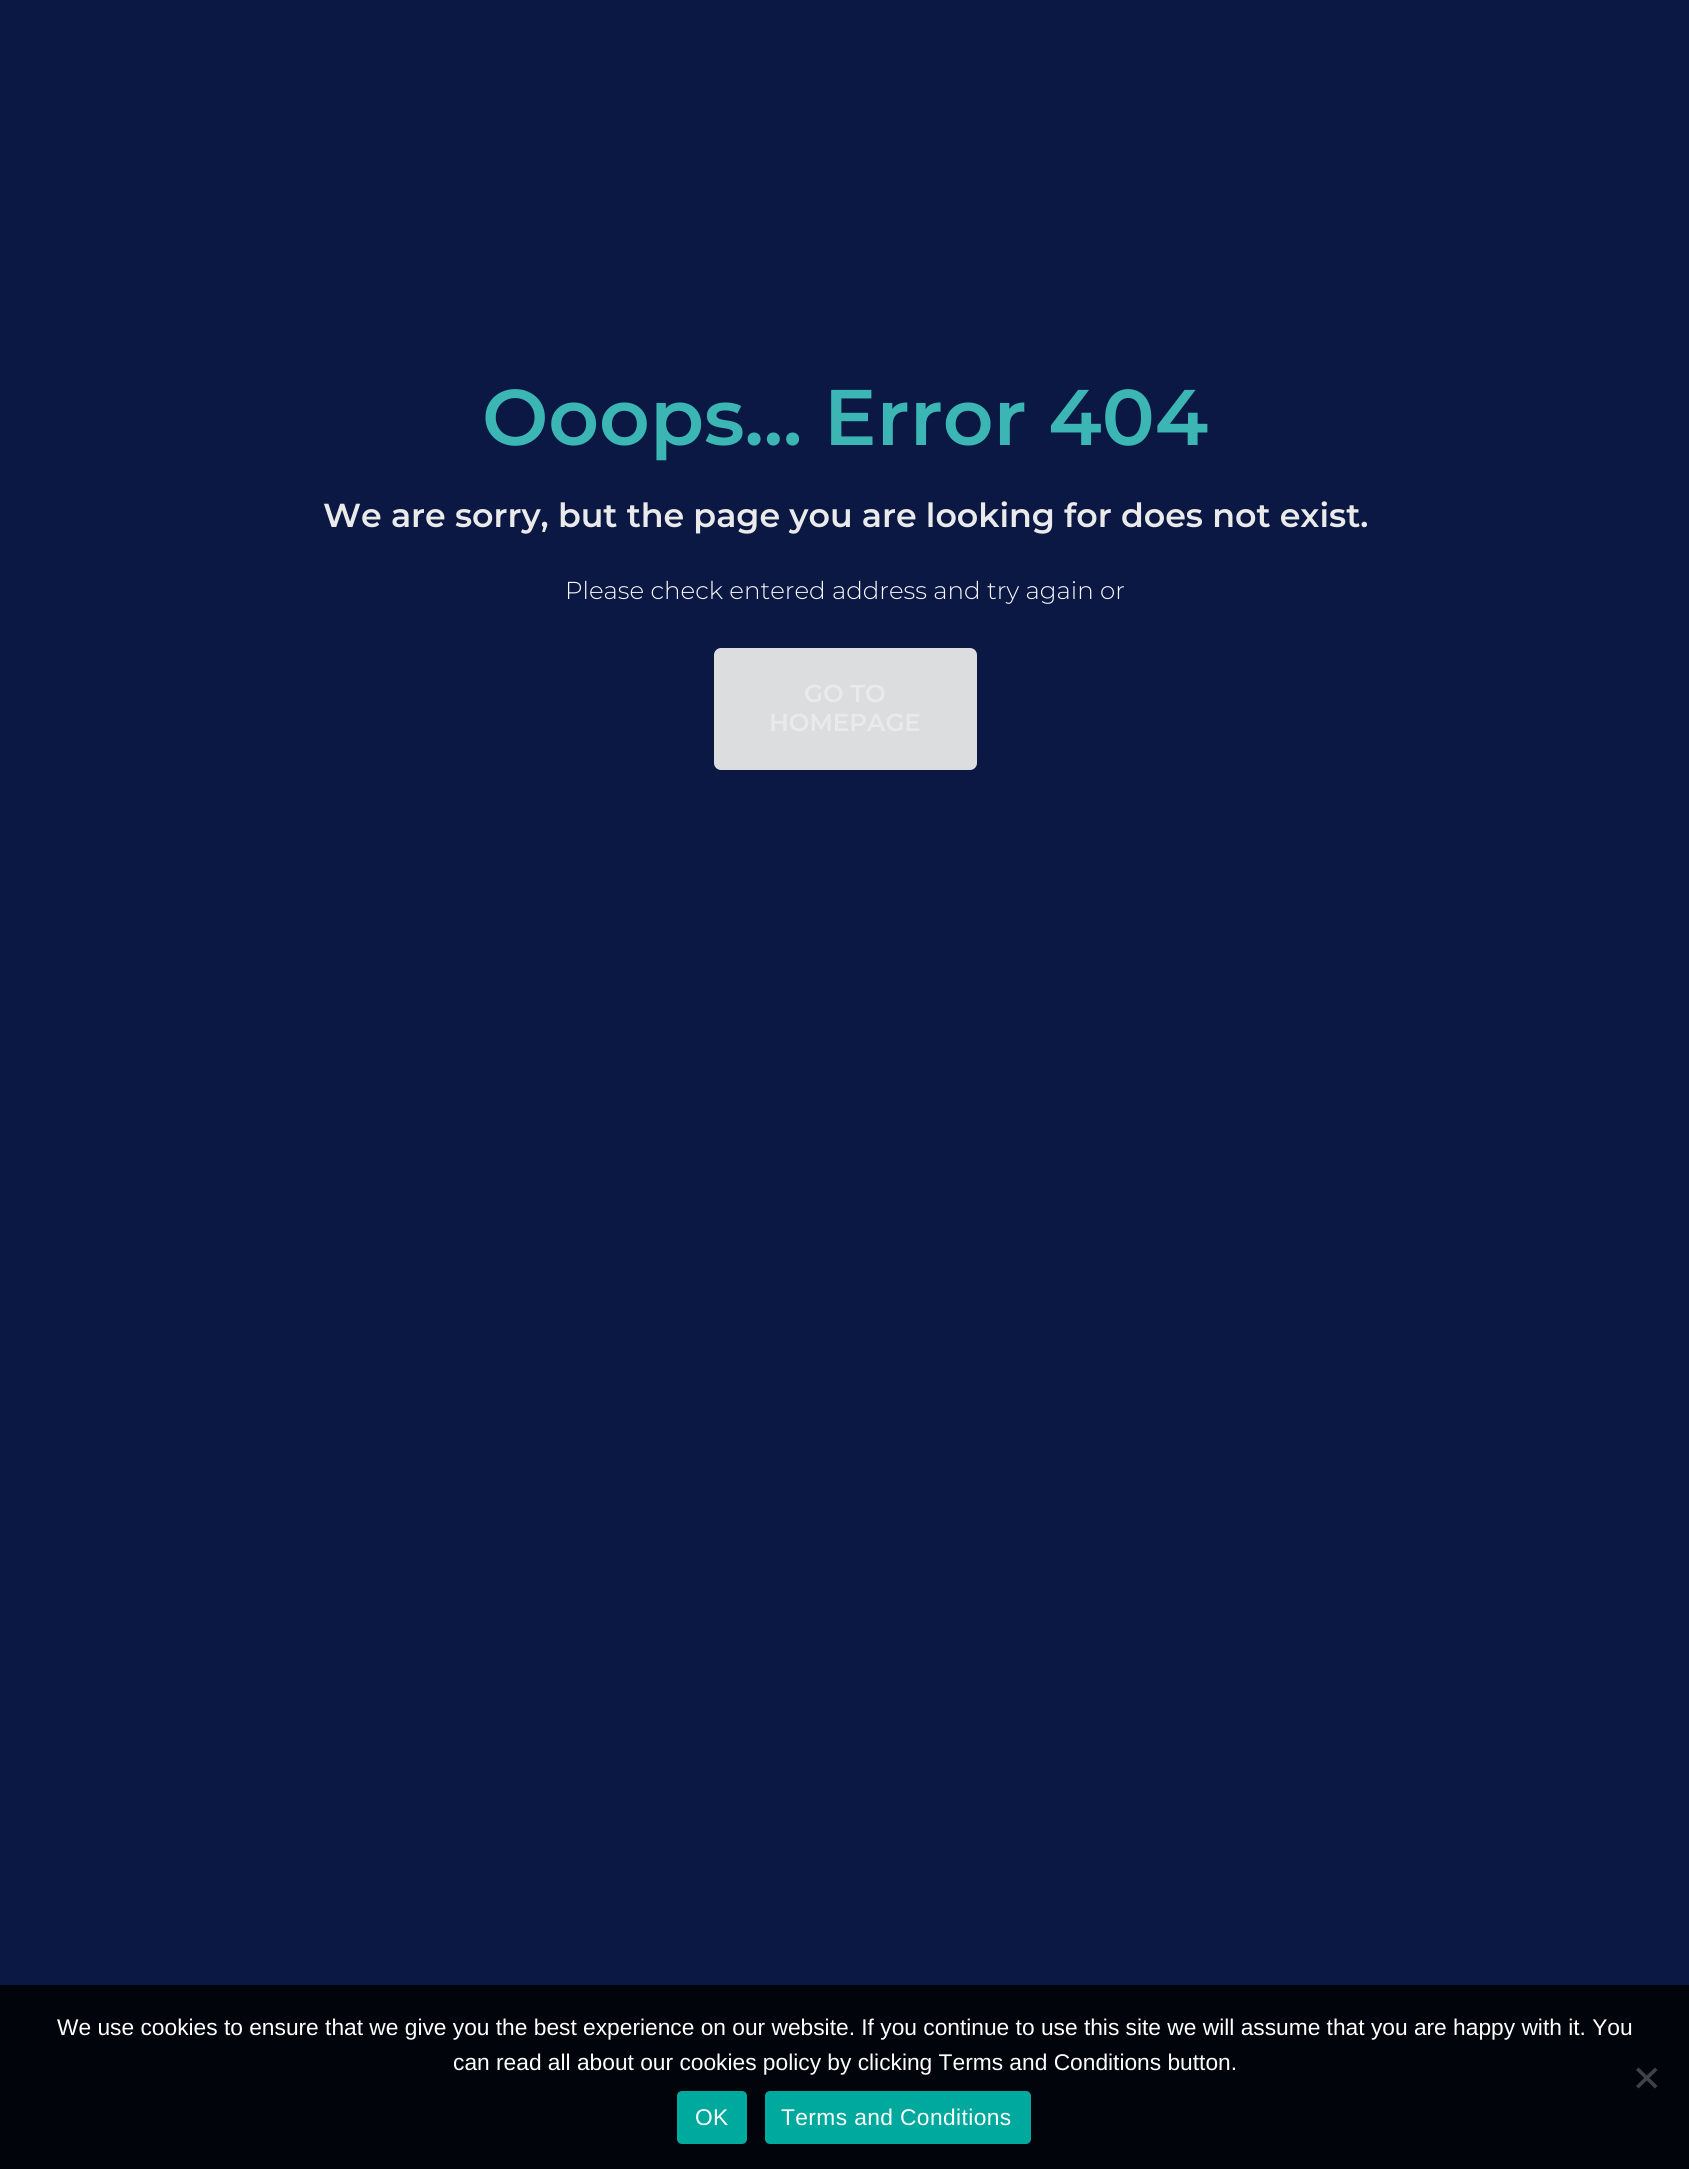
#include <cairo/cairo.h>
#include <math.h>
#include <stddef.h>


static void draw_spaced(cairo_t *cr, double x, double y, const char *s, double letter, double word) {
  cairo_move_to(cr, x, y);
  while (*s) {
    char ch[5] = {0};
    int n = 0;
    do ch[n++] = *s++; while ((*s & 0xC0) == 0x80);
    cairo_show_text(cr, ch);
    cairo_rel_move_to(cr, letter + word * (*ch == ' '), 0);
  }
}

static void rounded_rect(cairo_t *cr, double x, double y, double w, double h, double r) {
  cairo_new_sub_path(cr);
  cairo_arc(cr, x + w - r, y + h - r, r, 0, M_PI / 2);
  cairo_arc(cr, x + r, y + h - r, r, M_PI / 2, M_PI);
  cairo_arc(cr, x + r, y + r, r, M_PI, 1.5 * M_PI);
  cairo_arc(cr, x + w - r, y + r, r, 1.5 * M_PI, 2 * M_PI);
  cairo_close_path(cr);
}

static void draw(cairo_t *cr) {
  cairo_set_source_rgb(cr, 10 / 255.0, 24 / 255.0, 67 / 255.0);
  cairo_paint(cr);
  cairo_set_source_rgb(cr, 219 / 255.0, 221 / 255.0, 223 / 255.0);
  rounded_rect(cr, 714, 648, 263, 122, 7);
  cairo_fill(cr);
  cairo_set_source_rgb(cr, 2 / 255.0, 4 / 255.0, 11 / 255.0);
  cairo_rectangle(cr, 0, 1985, 1689, 184);
  cairo_fill(cr);
  cairo_set_source_rgb(cr, 65 / 255.0, 66 / 255.0, 70 / 255.0);
  cairo_new_path(cr);
  cairo_move_to(cr, 1655, 2067.5);
  cairo_line_to(cr, 1657.5, 2070);
  cairo_line_to(cr, 1638.5, 2088.5);
  cairo_line_to(cr, 1636, 2086);
  cairo_close_path(cr);
  cairo_fill(cr);
  cairo_new_path(cr);
  cairo_move_to(cr, 1636, 2070);
  cairo_line_to(cr, 1638.5, 2067.5);
  cairo_line_to(cr, 1657.5, 2086);
  cairo_line_to(cr, 1655, 2088.5);
  cairo_close_path(cr);
  cairo_fill(cr);
  cairo_set_source_rgb(cr, 0, 169 / 255.0, 157 / 255.0);
  rounded_rect(cr, 677, 2091, 70, 53, 5);
  cairo_fill(cr);
  rounded_rect(cr, 765, 2091, 266, 53, 5);
  cairo_fill(cr);
  cairo_select_font_face(cr, "Montserrat SemiBold", CAIRO_FONT_SLANT_NORMAL, CAIRO_FONT_WEIGHT_NORMAL);
  cairo_set_font_size(cr, 78.75);
  cairo_set_source_rgb(cr, 59 / 255.0, 182 / 255.0, 180 / 255.0);
  cairo_move_to(cr, 482, 445);
  cairo_show_text(cr, "Ooops... Error 404");
  cairo_set_font_size(cr, 33.25);
  cairo_set_source_rgb(cr, 234 / 255.0, 234 / 255.0, 234 / 255.0);
  cairo_move_to(cr, 323, 527);
  cairo_show_text(cr, "We are sorry, but the page you are looking for does not exist.");
  cairo_select_font_face(cr, "Montserrat Light", CAIRO_FONT_SLANT_NORMAL, CAIRO_FONT_WEIGHT_NORMAL);
  cairo_set_font_size(cr, 24.5);
  cairo_set_source_rgb(cr, 247 / 255.0, 247 / 255.0, 247 / 255.0);
  cairo_move_to(cr, 565, 599);
  cairo_show_text(cr, "Please check entered address and try again or");
  cairo_select_font_face(cr, "Montserrat SemiBold", CAIRO_FONT_SLANT_NORMAL, CAIRO_FONT_WEIGHT_NORMAL);
  cairo_set_source_rgb(cr, 234 / 255.0, 234 / 255.0, 234 / 255.0);
  cairo_move_to(cr, 804, 702);
  cairo_show_text(cr, "GO TO");
  cairo_move_to(cr, 769, 731);
  cairo_show_text(cr, "HOMEPAGE");
  cairo_select_font_face(cr, "Liberation Sans", CAIRO_FONT_SLANT_NORMAL, CAIRO_FONT_WEIGHT_NORMAL);
  cairo_set_font_size(cr, 22.75);
  cairo_set_source_rgb(cr, 1, 1, 1);
  cairo_move_to(cr, 57, 2035);
  cairo_show_text(cr, "We use cookies to ensure that we give you the best experience on our website. If you continue to use this site we will assume that you are happy with it. You");
  cairo_move_to(cr, 453, 2070);
  cairo_show_text(cr, "can read all about our cookies policy by clicking Terms and Conditions button.");
  draw_spaced(cr, 695, 2125, "OK", 0.4, 0);
  draw_spaced(cr, 781, 2125, "Terms and Conditions", 0.4, 0);
}

int main(void) {
  cairo_surface_t *surface = cairo_image_surface_create(CAIRO_FORMAT_RGB24, 1689, 2169);
  cairo_t *cr = cairo_create(surface);
  cairo_font_options_t *options = cairo_font_options_create();
  cairo_font_options_set_hint_metrics(options, CAIRO_HINT_METRICS_OFF);
  cairo_font_options_set_hint_style(options, CAIRO_HINT_STYLE_NONE);
  cairo_set_font_options(cr, options);
  cairo_set_miter_limit(cr, 4);
  draw(cr);
  cairo_surface_write_to_png(surface, "out.png");
  cairo_font_options_destroy(options);
  cairo_destroy(cr);
  cairo_surface_destroy(surface);
  return 0;
}
